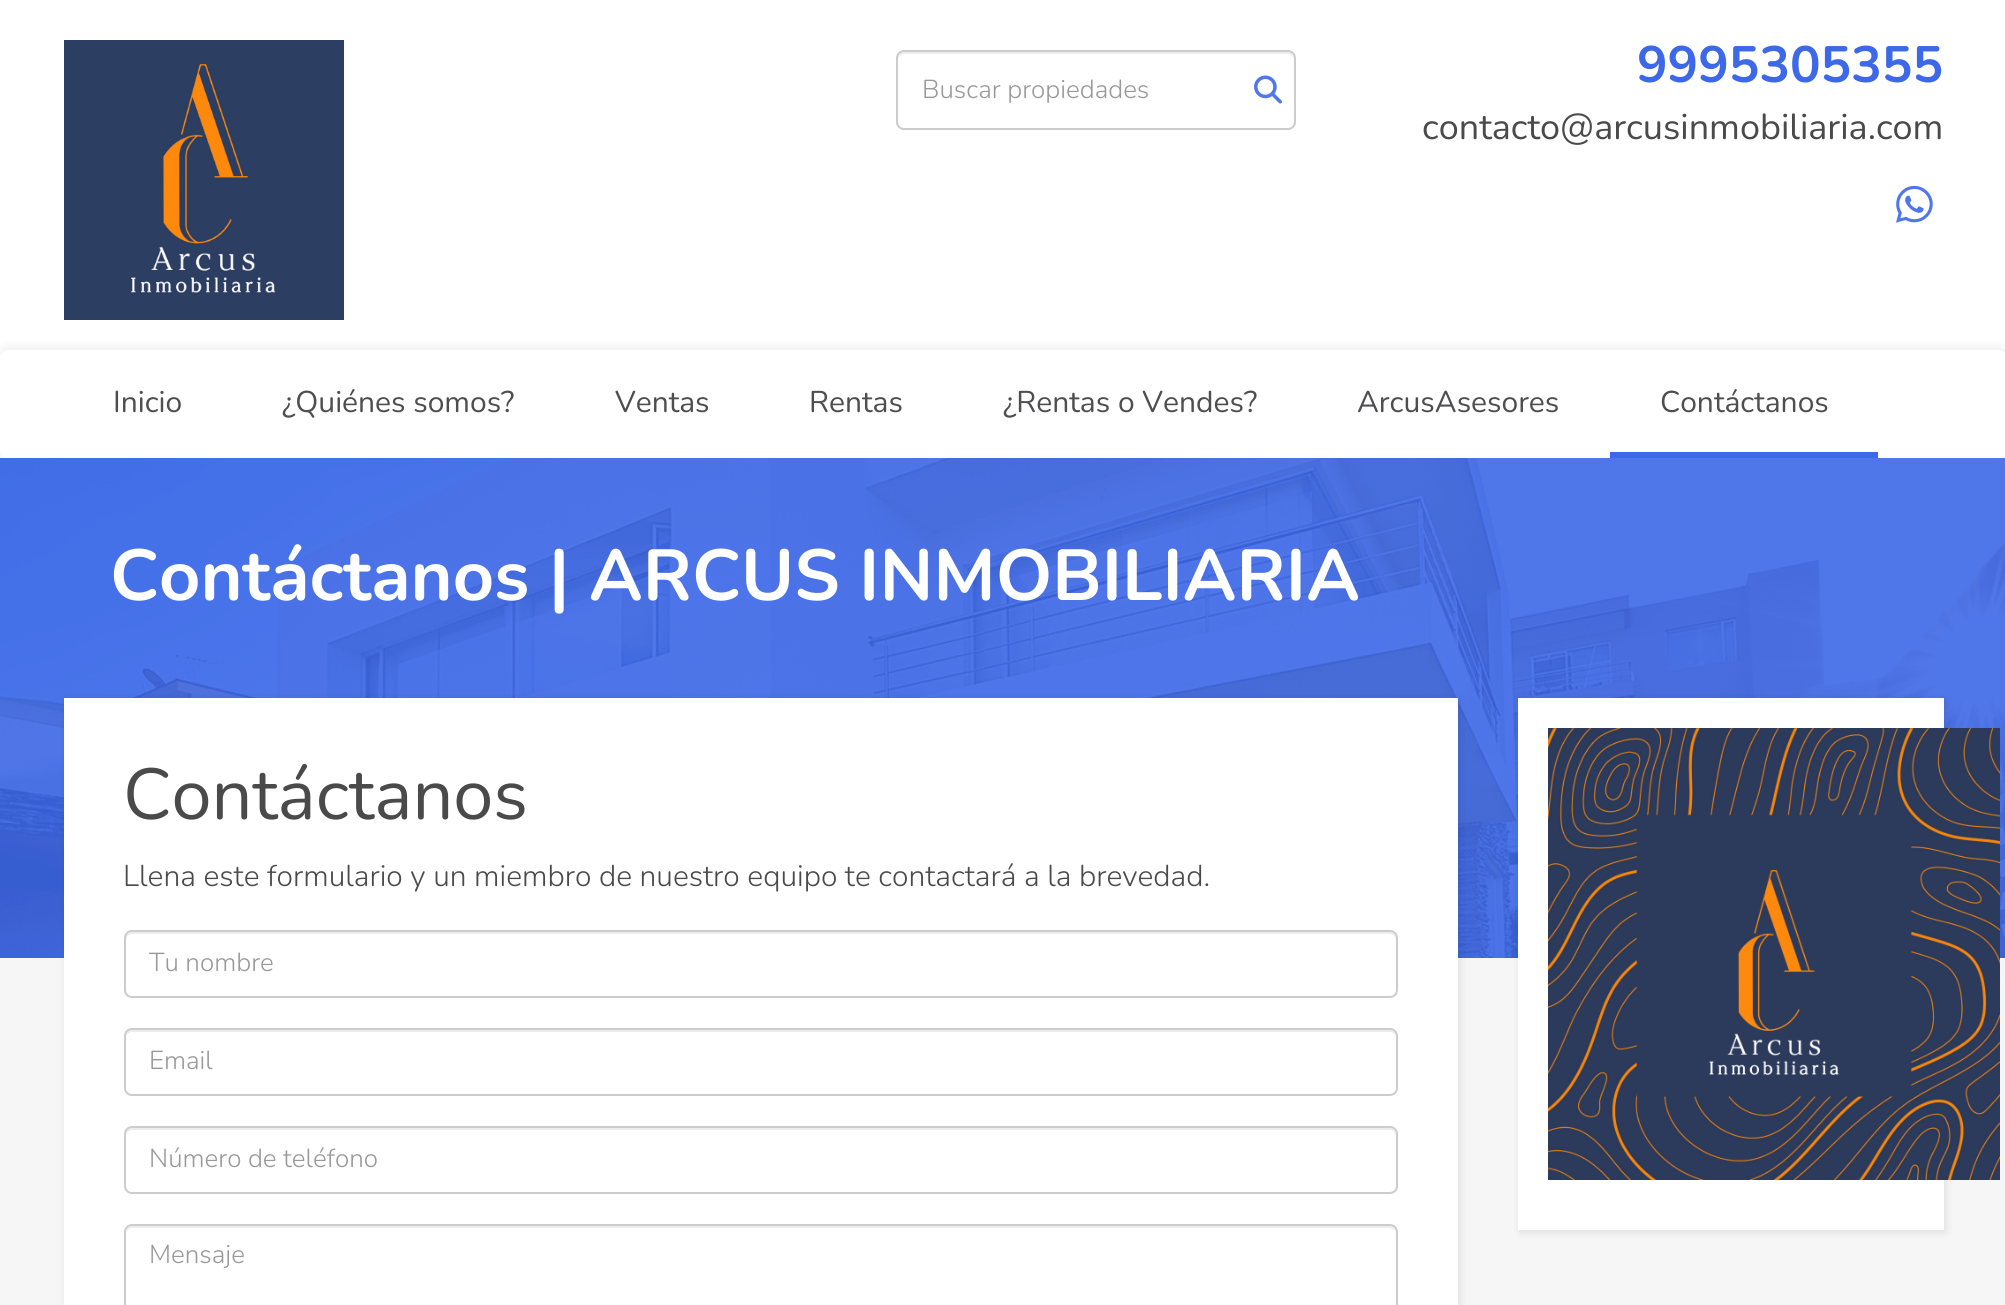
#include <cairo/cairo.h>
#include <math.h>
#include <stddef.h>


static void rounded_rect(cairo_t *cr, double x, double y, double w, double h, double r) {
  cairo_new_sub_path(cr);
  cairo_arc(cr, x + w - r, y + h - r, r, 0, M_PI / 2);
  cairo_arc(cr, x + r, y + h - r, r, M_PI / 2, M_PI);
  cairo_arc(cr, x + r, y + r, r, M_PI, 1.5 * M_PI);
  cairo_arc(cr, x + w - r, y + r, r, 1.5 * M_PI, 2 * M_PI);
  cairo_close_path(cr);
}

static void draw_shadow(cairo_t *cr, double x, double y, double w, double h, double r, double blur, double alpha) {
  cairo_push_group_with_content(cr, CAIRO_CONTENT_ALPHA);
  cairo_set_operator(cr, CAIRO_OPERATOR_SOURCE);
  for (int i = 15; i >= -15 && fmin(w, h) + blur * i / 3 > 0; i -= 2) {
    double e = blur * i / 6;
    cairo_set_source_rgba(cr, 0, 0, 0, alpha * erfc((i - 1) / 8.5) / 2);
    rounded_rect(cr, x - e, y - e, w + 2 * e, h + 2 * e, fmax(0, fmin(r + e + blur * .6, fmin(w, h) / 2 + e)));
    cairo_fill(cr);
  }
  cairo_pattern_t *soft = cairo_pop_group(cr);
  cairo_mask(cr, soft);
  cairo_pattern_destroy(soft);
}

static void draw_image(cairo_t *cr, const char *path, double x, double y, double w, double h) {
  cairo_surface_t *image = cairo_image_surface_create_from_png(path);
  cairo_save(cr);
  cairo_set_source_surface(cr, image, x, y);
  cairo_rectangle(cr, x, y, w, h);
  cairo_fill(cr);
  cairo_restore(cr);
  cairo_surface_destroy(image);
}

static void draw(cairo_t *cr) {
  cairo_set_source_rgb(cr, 246 / 255.0, 246 / 255.0, 246 / 255.0);
  cairo_paint(cr);
  cairo_set_source_rgb(cr, 1, 1, 1);
  cairo_rectangle(cr, 0, 0, 2005, 458);
  cairo_fill(cr);
  draw_image(cr, "images/1.png", 64, 40, 280, 280);
  cairo_set_source_rgb(cr, 236 / 255.0, 236 / 255.0, 236 / 255.0);
  cairo_new_path(cr);
  cairo_move_to(cr, 904, 54);
  cairo_line_to(cr, 1288, 54);
  cairo_curve_to(cr, 1291, 54, 1294, 57, 1294, 60);
  cairo_curve_to(cr, 1294, 56, 1293, 52, 1288, 52);
  cairo_line_to(cr, 904, 52);
  cairo_curve_to(cr, 899, 52, 898, 56, 898, 60);
  cairo_curve_to(cr, 898, 57, 901, 54, 904, 54);
  cairo_close_path(cr);
  cairo_fill(cr);
  rounded_rect(cr, 897, 51, 398, 78, 7);
  cairo_set_source_rgb(cr, 204 / 255.0, 204 / 255.0, 204 / 255.0);
  cairo_stroke(cr);
  draw_image(cr, "images/2.png", 1254, 75, 28, 29);
  draw_image(cr, "images/3.png", 1896, 185, 37, 38);
  cairo_set_source_rgb(cr, 0, 0, 0);
  draw_shadow(cr, 0, 348, 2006, 108, 8, 6, 0.08);
  cairo_set_source_rgb(cr, 1, 1, 1);
  rounded_rect(cr, 0, 350, 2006, 108, 8);
  cairo_fill(cr);
  cairo_set_source_rgb(cr, 61 / 255.0, 104 / 255.0, 232 / 255.0);
  cairo_rectangle(cr, 1610, 452, 268, 6);
  cairo_fill(cr);
  draw_image(cr, "images/4.png", 0, 458, 2005, 500);
  cairo_set_source_rgb(cr, 0, 0, 0);
  draw_shadow(cr, 66, 700, 1394, 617, 0, 4, 0.1);
  cairo_set_source_rgb(cr, 1, 1, 1);
  cairo_rectangle(cr, 64, 698, 1394, 607);
  cairo_fill(cr);
  cairo_set_source_rgb(cr, 236 / 255.0, 236 / 255.0, 236 / 255.0);
  cairo_new_path(cr);
  cairo_move_to(cr, 132, 934);
  cairo_line_to(cr, 1390, 934);
  cairo_curve_to(cr, 1393, 934, 1396, 937, 1396, 940);
  cairo_line_to(cr, 1396, 938);
  cairo_curve_to(cr, 1396, 935, 1393, 932, 1390, 932);
  cairo_line_to(cr, 132, 932);
  cairo_curve_to(cr, 129, 932, 126, 935, 126, 938);
  cairo_line_to(cr, 126, 940);
  cairo_curve_to(cr, 126, 937, 129, 934, 132, 934);
  cairo_close_path(cr);
  cairo_fill(cr);
  rounded_rect(cr, 125, 931, 1272, 66, 7);
  cairo_set_source_rgb(cr, 204 / 255.0, 204 / 255.0, 204 / 255.0);
  cairo_stroke(cr);
  cairo_set_source_rgb(cr, 236 / 255.0, 236 / 255.0, 236 / 255.0);
  cairo_new_path(cr);
  cairo_move_to(cr, 132, 1032);
  cairo_line_to(cr, 1390, 1032);
  cairo_curve_to(cr, 1393, 1032, 1396, 1035, 1396, 1038);
  cairo_line_to(cr, 1396, 1036);
  cairo_curve_to(cr, 1396, 1033, 1393, 1030, 1390, 1030);
  cairo_line_to(cr, 132, 1030);
  cairo_curve_to(cr, 129, 1030, 126, 1033, 126, 1036);
  cairo_line_to(cr, 126, 1038);
  cairo_curve_to(cr, 126, 1035, 129, 1032, 132, 1032);
  cairo_close_path(cr);
  cairo_fill(cr);
  rounded_rect(cr, 125, 1029, 1272, 66, 7);
  cairo_set_source_rgb(cr, 204 / 255.0, 204 / 255.0, 204 / 255.0);
  cairo_stroke(cr);
  cairo_set_source_rgb(cr, 236 / 255.0, 236 / 255.0, 236 / 255.0);
  cairo_new_path(cr);
  cairo_move_to(cr, 132, 1130);
  cairo_line_to(cr, 1390, 1130);
  cairo_curve_to(cr, 1393, 1130, 1396, 1133, 1396, 1136);
  cairo_line_to(cr, 1396, 1134);
  cairo_curve_to(cr, 1396, 1131, 1393, 1128, 1390, 1128);
  cairo_line_to(cr, 132, 1128);
  cairo_curve_to(cr, 129, 1128, 126, 1131, 126, 1134);
  cairo_line_to(cr, 126, 1136);
  cairo_curve_to(cr, 126, 1133, 129, 1130, 132, 1130);
  cairo_close_path(cr);
  cairo_fill(cr);
  rounded_rect(cr, 125, 1127, 1272, 66, 7);
  cairo_set_source_rgb(cr, 204 / 255.0, 204 / 255.0, 204 / 255.0);
  cairo_stroke(cr);
  cairo_set_source_rgb(cr, 236 / 255.0, 236 / 255.0, 236 / 255.0);
  cairo_new_path(cr);
  cairo_move_to(cr, 132, 1228);
  cairo_line_to(cr, 1390, 1228);
  cairo_curve_to(cr, 1393, 1228, 1396, 1231, 1396, 1234);
  cairo_line_to(cr, 1396, 1232);
  cairo_curve_to(cr, 1396, 1229, 1393, 1226, 1390, 1226);
  cairo_line_to(cr, 132, 1226);
  cairo_curve_to(cr, 129, 1226, 126, 1229, 126, 1232);
  cairo_line_to(cr, 126, 1234);
  cairo_curve_to(cr, 126, 1231, 129, 1228, 132, 1228);
  cairo_close_path(cr);
  cairo_fill(cr);
  rounded_rect(cr, 125, 1225, 1272, 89, 7);
  cairo_set_source_rgb(cr, 204 / 255.0, 204 / 255.0, 204 / 255.0);
  cairo_stroke(cr);
  cairo_set_source_rgb(cr, 0, 0, 0);
  draw_shadow(cr, 1520, 700, 426, 532, 0, 4, 0.1);
  cairo_set_source_rgb(cr, 1, 1, 1);
  cairo_rectangle(cr, 1518, 698, 426, 532);
  cairo_fill(cr);
  draw_image(cr, "images/5.png", 1548, 728, 452, 452);
  cairo_select_font_face(cr, "Nunito Light", CAIRO_FONT_SLANT_NORMAL, CAIRO_FONT_WEIGHT_NORMAL);
  cairo_set_font_size(cr, 26);
  cairo_set_source_rgb(cr, 153 / 255.0, 153 / 255.0, 153 / 255.0);
  cairo_move_to(cr, 922, 98);
  cairo_show_text(cr, "Buscar propiedades");
  cairo_select_font_face(cr, "Nunito", CAIRO_FONT_SLANT_NORMAL, CAIRO_FONT_WEIGHT_BOLD);
  cairo_set_font_size(cr, 51);
  cairo_set_source_rgb(cr, 61 / 255.0, 104 / 255.0, 232 / 255.0);
  cairo_move_to(cr, 1637, 82);
  cairo_show_text(cr, "9995305355");
  cairo_select_font_face(cr, "Nunito", CAIRO_FONT_SLANT_NORMAL, CAIRO_FONT_WEIGHT_NORMAL);
  cairo_set_font_size(cr, 36);
  cairo_set_source_rgb(cr, 74 / 255.0, 74 / 255.0, 74 / 255.0);
  cairo_move_to(cr, 1422, 139);
  cairo_show_text(cr, "contacto@arcusinmobiliaria.com");
  cairo_set_font_size(cr, 30);
  cairo_set_source_rgb(cr, 78 / 255.0, 78 / 255.0, 80 / 255.0);
  cairo_move_to(cr, 113, 412);
  cairo_show_text(cr, "Inicio");
  cairo_move_to(cr, 282, 412);
  cairo_show_text(cr, "¿Quiénes somos?");
  cairo_move_to(cr, 615, 412);
  cairo_show_text(cr, "Ventas");
  cairo_move_to(cr, 809, 412);
  cairo_show_text(cr, "Rentas");
  cairo_move_to(cr, 1003, 412);
  cairo_show_text(cr, "¿Rentas o Vendes?");
  cairo_move_to(cr, 1357, 412);
  cairo_show_text(cr, "ArcusAsesores");
  cairo_move_to(cr, 1660, 412);
  cairo_show_text(cr, "Contáctanos");
  cairo_select_font_face(cr, "Nunito", CAIRO_FONT_SLANT_NORMAL, CAIRO_FONT_WEIGHT_BOLD);
  cairo_set_font_size(cr, 72);
  cairo_set_source_rgb(cr, 1, 1, 1);
  cairo_move_to(cr, 110, 600);
  cairo_show_text(cr, "Contáctanos | ARCUS INMOBILIARIA");
  cairo_select_font_face(cr, "Nunito", CAIRO_FONT_SLANT_NORMAL, CAIRO_FONT_WEIGHT_NORMAL);
  cairo_set_source_rgb(cr, 74 / 255.0, 74 / 255.0, 74 / 255.0);
  cairo_move_to(cr, 123, 819);
  cairo_show_text(cr, "Contáctanos");
  cairo_select_font_face(cr, "Nunito Light", CAIRO_FONT_SLANT_NORMAL, CAIRO_FONT_WEIGHT_NORMAL);
  cairo_set_font_size(cr, 30);
  cairo_move_to(cr, 123, 886);
  cairo_show_text(cr, "Llena este formulario y un miembro de nuestro equipo te contactará a la brevedad.");
  cairo_set_font_size(cr, 26);
  cairo_set_source_rgb(cr, 153 / 255.0, 153 / 255.0, 153 / 255.0);
  cairo_move_to(cr, 149, 971);
  cairo_show_text(cr, "Tu nombre");
  cairo_move_to(cr, 149, 1069);
  cairo_show_text(cr, "Email");
  cairo_move_to(cr, 149, 1167);
  cairo_show_text(cr, "Número de teléfono");
  cairo_move_to(cr, 149, 1263);
  cairo_show_text(cr, "Mensaje");
}

int main(void) {
  cairo_surface_t *surface = cairo_image_surface_create(CAIRO_FORMAT_RGB24, 2005, 1305);
  cairo_t *cr = cairo_create(surface);
  cairo_font_options_t *options = cairo_font_options_create();
  cairo_font_options_set_hint_metrics(options, CAIRO_HINT_METRICS_OFF);
  cairo_font_options_set_hint_style(options, CAIRO_HINT_STYLE_NONE);
  cairo_set_font_options(cr, options);
  cairo_set_miter_limit(cr, 4);
  draw(cr);
  cairo_surface_write_to_png(surface, "out.png");
  cairo_font_options_destroy(options);
  cairo_destroy(cr);
  cairo_surface_destroy(surface);
  return 0;
}
